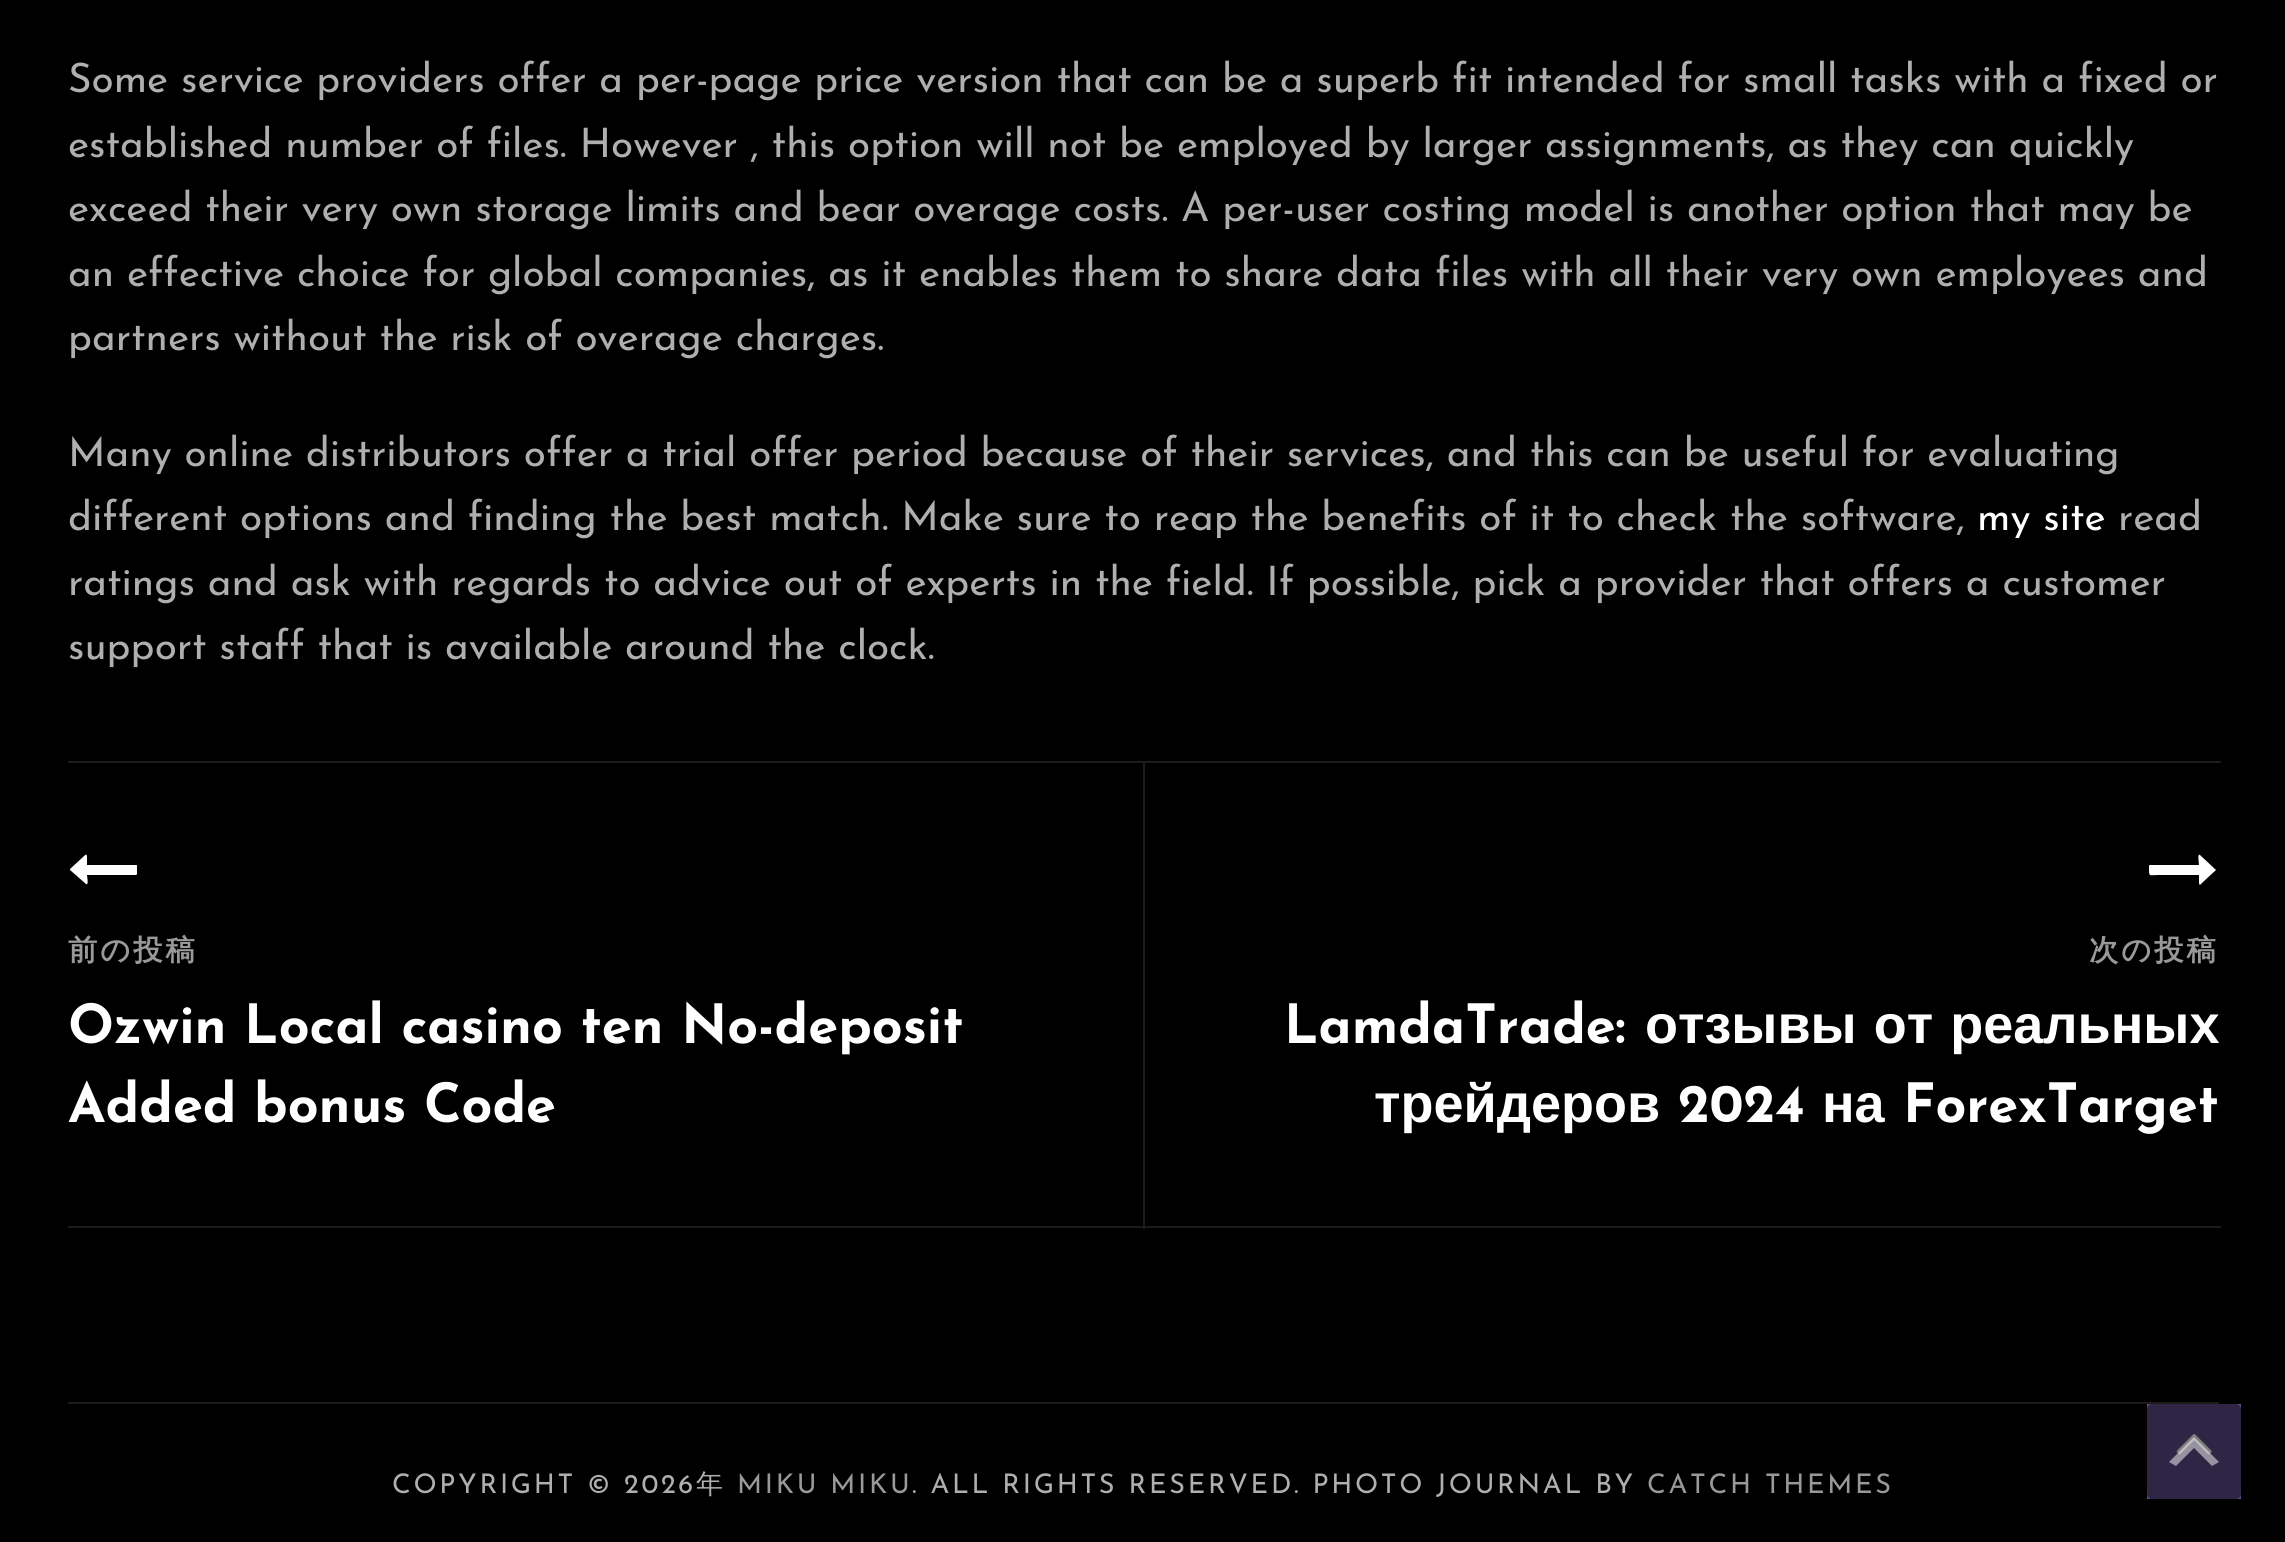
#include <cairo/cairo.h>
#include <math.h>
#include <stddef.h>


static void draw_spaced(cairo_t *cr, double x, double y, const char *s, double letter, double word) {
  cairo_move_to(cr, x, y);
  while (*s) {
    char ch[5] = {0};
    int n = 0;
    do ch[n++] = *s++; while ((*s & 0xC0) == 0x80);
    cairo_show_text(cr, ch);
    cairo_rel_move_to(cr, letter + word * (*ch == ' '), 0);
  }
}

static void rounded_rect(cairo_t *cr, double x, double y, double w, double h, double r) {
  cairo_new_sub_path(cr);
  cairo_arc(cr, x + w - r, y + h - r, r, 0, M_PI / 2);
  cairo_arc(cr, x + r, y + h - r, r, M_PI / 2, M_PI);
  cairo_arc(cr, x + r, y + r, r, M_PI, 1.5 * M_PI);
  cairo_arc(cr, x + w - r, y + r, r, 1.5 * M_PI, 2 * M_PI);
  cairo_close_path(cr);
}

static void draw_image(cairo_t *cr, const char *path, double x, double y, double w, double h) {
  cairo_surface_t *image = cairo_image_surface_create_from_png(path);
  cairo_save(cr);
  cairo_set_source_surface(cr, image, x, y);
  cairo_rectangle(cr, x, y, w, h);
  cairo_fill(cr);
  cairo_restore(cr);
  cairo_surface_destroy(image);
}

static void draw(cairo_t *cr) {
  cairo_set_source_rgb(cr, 0, 0, 0);
  cairo_paint(cr);
  cairo_set_source_rgb(cr, 28 / 255.0, 28 / 255.0, 28 / 255.0);
  cairo_rectangle(cr, 1143, 761, 1078, 2);
  cairo_fill(cr);
  cairo_rectangle(cr, 1143, 1226, 1078, 2);
  cairo_fill(cr);
  cairo_rectangle(cr, 1143, 761, 2, 468);
  cairo_fill(cr);
  cairo_rectangle(cr, 68, 761, 1077, 2);
  cairo_fill(cr);
  cairo_rectangle(cr, 68, 1226, 1077, 2);
  cairo_fill(cr);
  cairo_save(cr);
  cairo_rectangle(cr, 68, 835, 69, 70);
  cairo_clip(cr);
  cairo_set_source_rgb(cr, 1, 1, 1);
  cairo_new_path(cr);
  cairo_move_to(cr, 137, 866);
  cairo_curve_to(cr, 137, 867, 138, 875, 136, 875);
  cairo_line_to(cr, 87, 875);
  cairo_curve_to(cr, 87, 876, 89, 886, 86, 884);
  cairo_line_to(cr, 70, 870);
  cairo_line_to(cr, 70, 869);
  cairo_line_to(cr, 83, 857);
  cairo_curve_to(cr, 85, 855, 87, 853, 87, 857);
  cairo_line_to(cr, 87, 865);
  cairo_line_to(cr, 136, 865);
  cairo_curve_to(cr, 137, 865, 137, 865, 137, 866);
  cairo_close_path(cr);
  cairo_fill(cr);
  cairo_restore(cr);
  cairo_save(cr);
  cairo_rectangle(cr, 2149, 835, 70, 70);
  cairo_clip(cr);
  cairo_set_source_rgb(cr, 1, 1, 1);
  cairo_new_path(cr);
  cairo_move_to(cr, 2216, 870);
  cairo_line_to(cr, 2203, 882);
  cairo_curve_to(cr, 2201, 884, 2199, 887, 2199, 882);
  cairo_line_to(cr, 2199, 875);
  cairo_line_to(cr, 2158, 875);
  cairo_curve_to(cr, 2150, 875, 2149, 877, 2149, 870);
  cairo_curve_to(cr, 2149, 869, 2148, 865, 2150, 865);
  cairo_line_to(cr, 2199, 865);
  cairo_curve_to(cr, 2199, 863, 2197, 853, 2200, 855);
  cairo_close_path(cr);
  cairo_fill(cr);
  cairo_restore(cr);
  cairo_rectangle(cr, 68, 1402, 2151, 2);
  cairo_fill(cr);
  cairo_set_source_rgb(cr, 95 / 255.0, 75 / 255.0, 139 / 255.0);
  cairo_rectangle(cr, 2147, 1404, 94, 95);
  cairo_fill(cr);
  draw_image(cr, "images/1.png", 2176, 1433, 36, 22);
  cairo_set_source_rgba(cr, 0, 0, 0, 0.5);
  rounded_rect(cr, 2147, 1404, 94, 95, 5);
  cairo_fill(cr);
  cairo_set_source_rgba(cr, 1, 1, 1, 0.5);
  cairo_new_path(cr);
  cairo_move_to(cr, 2212, 1466);
  cairo_line_to(cr, 2194, 1448);
  cairo_line_to(cr, 2176, 1466);
  cairo_line_to(cr, 2169, 1462);
  cairo_line_to(cr, 2194, 1437);
  cairo_line_to(cr, 2219, 1462);
  cairo_close_path(cr);
  cairo_fill(cr);
  cairo_select_font_face(cr, "Josefin Sans", CAIRO_FONT_SLANT_NORMAL, CAIRO_FONT_WEIGHT_NORMAL);
  cairo_set_font_size(cr, 40.5);
  cairo_set_source_rgb(cr, 175 / 255.0, 175 / 255.0, 175 / 255.0);
  cairo_move_to(cr, 68, 92);
  cairo_show_text(cr, "Some service providers offer a per-page price version that can be a superb fit intended for small tasks with a fixed or");
  cairo_move_to(cr, 68, 157);
  cairo_show_text(cr, "established number of files. However , this option will not be employed by larger assignments, as they can quickly");
  cairo_move_to(cr, 68, 221);
  cairo_show_text(cr, "exceed their very own storage limits and bear overage costs. A per-user costing model is another option that may be");
  cairo_move_to(cr, 68, 286);
  cairo_show_text(cr, "an effective choice for global companies, as it enables them to share data files with all their very own employees and");
  cairo_move_to(cr, 68, 350);
  cairo_show_text(cr, "partners without the risk of overage charges.");
  cairo_move_to(cr, 68, 466);
  cairo_show_text(cr, "Many online distributors offer a trial offer period because of their services, and this can be useful for evaluating");
  cairo_move_to(cr, 68, 530);
  cairo_show_text(cr, "different options and finding the best match. Make sure to reap the benefits of it to check the software,");
  cairo_set_source_rgb(cr, 1, 1, 1);
  cairo_move_to(cr, 1977, 530);
  cairo_show_text(cr, "my site");
  cairo_set_source_rgb(cr, 175 / 255.0, 175 / 255.0, 175 / 255.0);
  cairo_move_to(cr, 2118, 530);
  cairo_show_text(cr, "read");
  cairo_move_to(cr, 68, 595);
  cairo_show_text(cr, "ratings and ask with regards to advice out of experts in the field. If possible, pick a provider that offers a customer");
  cairo_move_to(cr, 68, 659);
  cairo_show_text(cr, "support staff that is available around the clock.");
  cairo_select_font_face(cr, "WenQuanYi Zen Hei", CAIRO_FONT_SLANT_NORMAL, CAIRO_FONT_WEIGHT_BOLD);
  cairo_set_font_size(cr, 29.25);
  cairo_set_source_rgb(cr, 153 / 255.0, 153 / 255.0, 153 / 255.0);
  draw_spaced(cr, 68, 960, "前の投稿", 3, 0);
  cairo_select_font_face(cr, "Josefin Sans", CAIRO_FONT_SLANT_NORMAL, CAIRO_FONT_WEIGHT_BOLD);
  cairo_set_font_size(cr, 54);
  cairo_set_source_rgb(cr, 1, 1, 1);
  cairo_move_to(cr, 68, 1043);
  cairo_show_text(cr, "Ozwin Local casino ten No-deposit");
  cairo_move_to(cr, 68, 1122);
  cairo_show_text(cr, "Added bonus Code");
  cairo_select_font_face(cr, "WenQuanYi Zen Hei", CAIRO_FONT_SLANT_NORMAL, CAIRO_FONT_WEIGHT_BOLD);
  cairo_set_font_size(cr, 29.25);
  cairo_set_source_rgb(cr, 153 / 255.0, 153 / 255.0, 153 / 255.0);
  draw_spaced(cr, 2089, 960, "次の投稿", 3, 0);
  cairo_select_font_face(cr, "Josefin Sans", CAIRO_FONT_SLANT_NORMAL, CAIRO_FONT_WEIGHT_BOLD);
  cairo_set_font_size(cr, 54);
  cairo_set_source_rgb(cr, 1, 1, 1);
  cairo_move_to(cr, 1284, 1043);
  cairo_show_text(cr, "LamdaTrade:");
  cairo_select_font_face(cr, "Liberation Sans", CAIRO_FONT_SLANT_NORMAL, CAIRO_FONT_WEIGHT_BOLD);
  draw_spaced(cr, 1645, 1043, "отзывы от реальных", 0, 2);
  cairo_move_to(cr, 1374, 1122);
  cairo_show_text(cr, "трейдеров");
  cairo_select_font_face(cr, "Josefin Sans", CAIRO_FONT_SLANT_NORMAL, CAIRO_FONT_WEIGHT_BOLD);
  cairo_move_to(cr, 1678, 1122);
  cairo_show_text(cr, "2024");
  cairo_select_font_face(cr, "Liberation Sans", CAIRO_FONT_SLANT_NORMAL, CAIRO_FONT_WEIGHT_BOLD);
  cairo_move_to(cr, 1822, 1122);
  cairo_show_text(cr, "на");
  cairo_select_font_face(cr, "Josefin Sans", CAIRO_FONT_SLANT_NORMAL, CAIRO_FONT_WEIGHT_BOLD);
  cairo_move_to(cr, 1903, 1122);
  cairo_show_text(cr, "ForexTarget");
  cairo_select_font_face(cr, "Josefin Sans", CAIRO_FONT_SLANT_NORMAL, CAIRO_FONT_WEIGHT_NORMAL);
  cairo_set_font_size(cr, 27);
  cairo_set_source_rgb(cr, 175 / 255.0, 175 / 255.0, 175 / 255.0);
  draw_spaced(cr, 392, 1493, "COPYRIGHT © 2026", 2.7, 0);
  cairo_select_font_face(cr, "WenQuanYi Zen Hei Medium", CAIRO_FONT_SLANT_NORMAL, CAIRO_FONT_WEIGHT_NORMAL);
  draw_spaced(cr, 696, 1493, "年", 2.7, 0);
  cairo_select_font_face(cr, "Josefin Sans", CAIRO_FONT_SLANT_NORMAL, CAIRO_FONT_WEIGHT_NORMAL);
  cairo_set_source_rgb(cr, 153 / 255.0, 153 / 255.0, 153 / 255.0);
  draw_spaced(cr, 737, 1493, "MIKU MIKU", 2.7, 0);
  cairo_set_source_rgb(cr, 175 / 255.0, 175 / 255.0, 175 / 255.0);
  draw_spaced(cr, 912, 1493, ". ALL RIGHTS RESERVED. PHOTO JOURNAL BY", 2.7, 0);
  cairo_set_source_rgb(cr, 153 / 255.0, 153 / 255.0, 153 / 255.0);
  draw_spaced(cr, 1647, 1493, "CATCH THEMES", 2.7, 0);
}

int main(void) {
  cairo_surface_t *surface = cairo_image_surface_create(CAIRO_FORMAT_RGB24, 2285, 1542);
  cairo_t *cr = cairo_create(surface);
  cairo_font_options_t *options = cairo_font_options_create();
  cairo_font_options_set_hint_metrics(options, CAIRO_HINT_METRICS_OFF);
  cairo_font_options_set_hint_style(options, CAIRO_HINT_STYLE_NONE);
  cairo_set_font_options(cr, options);
  cairo_set_miter_limit(cr, 4);
  draw(cr);
  cairo_surface_write_to_png(surface, "out.png");
  cairo_font_options_destroy(options);
  cairo_destroy(cr);
  cairo_surface_destroy(surface);
  return 0;
}
